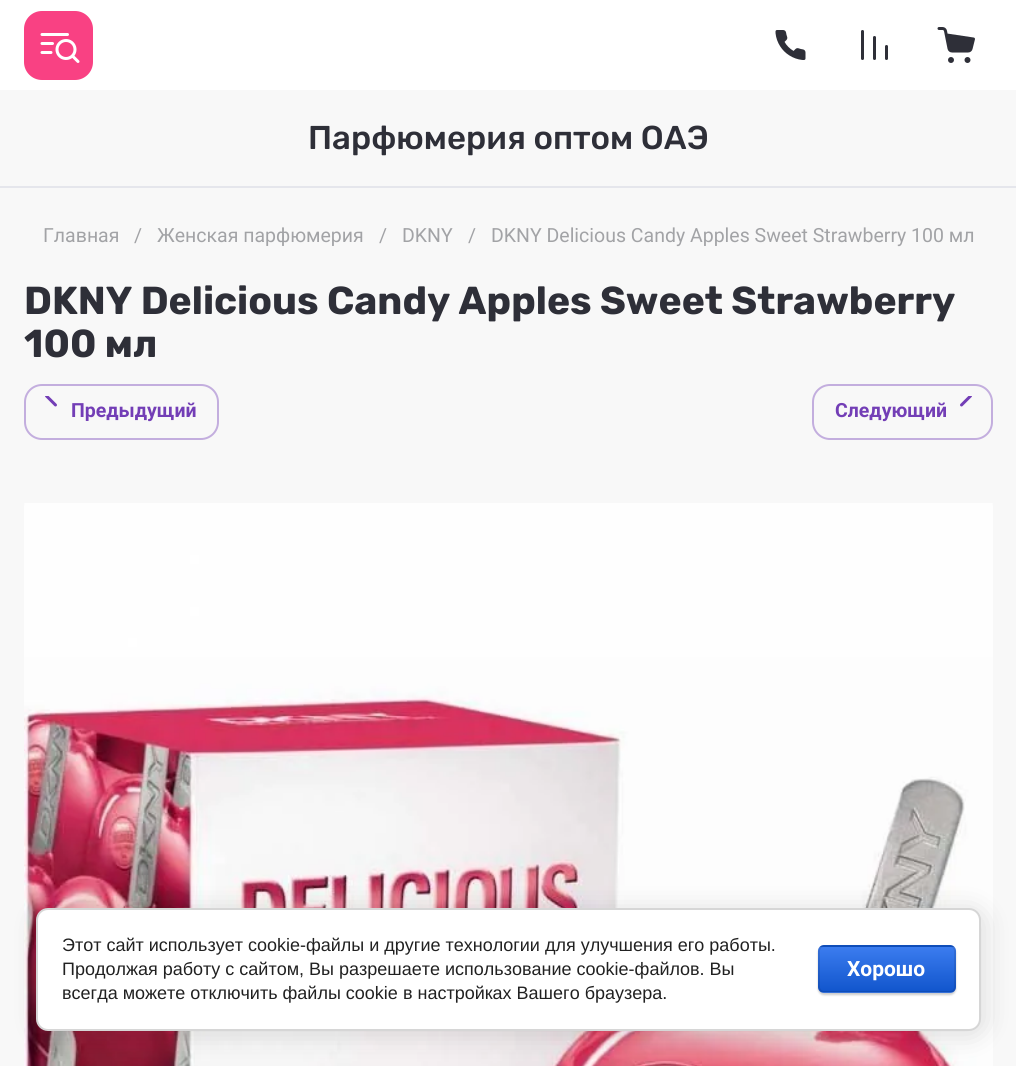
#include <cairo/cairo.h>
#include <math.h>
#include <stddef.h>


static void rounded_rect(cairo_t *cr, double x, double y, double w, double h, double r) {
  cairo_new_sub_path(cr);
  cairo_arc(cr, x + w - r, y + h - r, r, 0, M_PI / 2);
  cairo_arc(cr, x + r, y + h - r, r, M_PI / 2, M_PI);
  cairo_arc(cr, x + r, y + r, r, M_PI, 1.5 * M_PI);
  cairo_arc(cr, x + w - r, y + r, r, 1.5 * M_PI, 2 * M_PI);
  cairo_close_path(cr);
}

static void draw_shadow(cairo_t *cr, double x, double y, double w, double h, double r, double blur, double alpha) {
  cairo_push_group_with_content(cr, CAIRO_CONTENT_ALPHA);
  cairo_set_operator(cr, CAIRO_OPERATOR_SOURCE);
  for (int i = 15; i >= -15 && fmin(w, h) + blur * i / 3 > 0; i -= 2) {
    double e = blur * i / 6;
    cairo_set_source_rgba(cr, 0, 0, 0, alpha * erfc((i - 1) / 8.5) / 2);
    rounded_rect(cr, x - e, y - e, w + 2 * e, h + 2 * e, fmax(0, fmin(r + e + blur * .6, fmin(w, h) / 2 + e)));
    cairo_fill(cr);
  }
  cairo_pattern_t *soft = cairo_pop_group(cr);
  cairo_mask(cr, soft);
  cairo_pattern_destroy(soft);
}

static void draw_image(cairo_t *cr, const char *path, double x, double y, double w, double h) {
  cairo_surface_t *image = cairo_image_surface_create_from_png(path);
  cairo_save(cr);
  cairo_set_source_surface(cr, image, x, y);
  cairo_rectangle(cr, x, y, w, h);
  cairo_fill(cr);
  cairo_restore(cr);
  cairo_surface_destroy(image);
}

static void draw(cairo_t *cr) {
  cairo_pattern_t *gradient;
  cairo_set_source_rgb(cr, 248 / 255.0, 248 / 255.0, 248 / 255.0);
  cairo_paint(cr);
  cairo_set_source_rgb(cr, 229 / 255.0, 230 / 255.0, 236 / 255.0);
  cairo_rectangle(cr, 0, 186, 1016, 2);
  cairo_fill(cr);
  cairo_set_source_rgb(cr, 1, 1, 1);
  cairo_rectangle(cr, 0, 0, 1016, 90);
  cairo_fill(cr);
  cairo_set_source_rgb(cr, 249 / 255.0, 65 / 255.0, 131 / 255.0);
  rounded_rect(cr, 24, 11, 69, 69, 18);
  cairo_fill(cr);
  draw_image(cr, "images/1.png", 40, 33, 40, 30);
  draw_image(cr, "images/2.png", 775, 30, 31, 30);
  draw_image(cr, "images/3.png", 861, 30, 27, 30);
  draw_image(cr, "images/4.png", 937, 27, 38, 36);
  rounded_rect(cr, 25, 385, 193, 54, 17);
  cairo_set_source_rgb(cr, 195 / 255.0, 174 / 255.0, 222 / 255.0);
  cairo_stroke(cr);
  draw_image(cr, "images/5.png", 45, 396, 12, 11);
  rounded_rect(cr, 813, 385, 179, 54, 17);
  cairo_stroke(cr);
  draw_image(cr, "images/6.png", 960, 396, 12, 11);
  draw_image(cr, "images/7.png", 24, 503, 969, 563);
  cairo_set_source_rgb(cr, 0, 0, 0);
  draw_shadow(cr, 39, 911, 945, 123, 12, 13.5, 0.14);
  cairo_set_source_rgb(cr, 1, 1, 1);
  rounded_rect(cr, 37, 909, 943, 121, 11);
  cairo_fill_preserve(cr);
  cairo_set_source_rgb(cr, 214 / 255.0, 214 / 255.0, 214 / 255.0);
  cairo_stroke(cr);
  cairo_set_source_rgb(cr, 0, 0, 0);
  draw_shadow(cr, 818, 947, 138, 48, 6, 1, 0.2);
  cairo_save(cr);
  rounded_rect(cr, 818, 945, 138, 48, 6);
  cairo_clip(cr);
  gradient = cairo_pattern_create_linear(887, 902, 887, 947);
  cairo_pattern_add_color_stop_rgba(gradient, 0, 59 / 255.0, 124 / 255.0, 239 / 255.0, 1);
  cairo_pattern_add_color_stop_rgba(gradient, 1, 17 / 255.0, 85 / 255.0, 204 / 255.0, 1);
  cairo_set_source(cr, gradient);
  cairo_pattern_destroy(gradient);
  cairo_rectangle(cr, 818, 945, 138, 2);
  cairo_fill(cr);
  gradient = cairo_pattern_create_linear(887, 947, 887, 992);
  cairo_pattern_add_color_stop_rgba(gradient, 0, 59 / 255.0, 124 / 255.0, 239 / 255.0, 1);
  cairo_pattern_add_color_stop_rgba(gradient, 1, 17 / 255.0, 85 / 255.0, 204 / 255.0, 1);
  cairo_set_source(cr, gradient);
  cairo_pattern_destroy(gradient);
  cairo_rectangle(cr, 818, 947, 138, 45);
  cairo_fill(cr);
  gradient = cairo_pattern_create_linear(887, 992, 887, 1037);
  cairo_pattern_add_color_stop_rgba(gradient, 0, 59 / 255.0, 124 / 255.0, 239 / 255.0, 1);
  cairo_pattern_add_color_stop_rgba(gradient, 1, 17 / 255.0, 85 / 255.0, 204 / 255.0, 1);
  cairo_set_source(cr, gradient);
  cairo_pattern_destroy(gradient);
  cairo_rectangle(cr, 818, 992, 138, 1);
  cairo_fill(cr);
  cairo_restore(cr);
  rounded_rect(cr, 819, 946, 136, 46, 5);
  cairo_set_source_rgba(cr, 0, 0, 0, 0.1);
  cairo_stroke(cr);
  cairo_select_font_face(cr, "Rubik Medium", CAIRO_FONT_SLANT_NORMAL, CAIRO_FONT_WEIGHT_NORMAL);
  cairo_set_font_size(cr, 33);
  cairo_set_source_rgb(cr, 46 / 255.0, 47 / 255.0, 56 / 255.0);
  cairo_move_to(cr, 308, 149);
  cairo_show_text(cr, "Парфюмерия оптом ОАЭ");
  cairo_select_font_face(cr, "Roboto", CAIRO_FONT_SLANT_NORMAL, CAIRO_FONT_WEIGHT_NORMAL);
  cairo_set_font_size(cr, 19.5);
  cairo_set_source_rgb(cr, 162 / 255.0, 163 / 255.0, 166 / 255.0);
  cairo_move_to(cr, 43, 242);
  cairo_show_text(cr, "Главная");
  cairo_move_to(cr, 134, 242);
  cairo_show_text(cr, "/");
  cairo_move_to(cr, 157, 242);
  cairo_show_text(cr, "Женская парфюмерия");
  cairo_move_to(cr, 379, 242);
  cairo_show_text(cr, "/");
  cairo_move_to(cr, 402, 242);
  cairo_show_text(cr, "DKNY");
  cairo_move_to(cr, 468, 242);
  cairo_show_text(cr, "/");
  cairo_move_to(cr, 491, 242);
  cairo_show_text(cr, "DKNY Delicious Candy Apples Sweet Strawberry 100 мл");
  cairo_select_font_face(cr, "Rubik", CAIRO_FONT_SLANT_NORMAL, CAIRO_FONT_WEIGHT_BOLD);
  cairo_set_font_size(cr, 39);
  cairo_set_source_rgb(cr, 46 / 255.0, 47 / 255.0, 56 / 255.0);
  cairo_move_to(cr, 24, 314);
  cairo_show_text(cr, "DKNY Delicious Candy Apples Sweet Strawberry");
  cairo_move_to(cr, 24, 357);
  cairo_show_text(cr, "100 мл");
  cairo_select_font_face(cr, "Roboto", CAIRO_FONT_SLANT_NORMAL, CAIRO_FONT_WEIGHT_BOLD);
  cairo_set_font_size(cr, 19.5);
  cairo_set_source_rgb(cr, 115 / 255.0, 62 / 255.0, 182 / 255.0);
  cairo_move_to(cr, 71, 417);
  cairo_show_text(cr, "Предыдущий");
  cairo_move_to(cr, 835, 417);
  cairo_show_text(cr, "Следующий");
  cairo_select_font_face(cr, "Liberation Sans", CAIRO_FONT_SLANT_NORMAL, CAIRO_FONT_WEIGHT_NORMAL);
  cairo_set_font_size(cr, 18);
  cairo_set_source_rgb(cr, 33 / 255.0, 33 / 255.0, 33 / 255.0);
  cairo_move_to(cr, 62, 951);
  cairo_show_text(cr, "Этот сайт использует cookie-файлы и другие технологии для улучшения его работы.");
  cairo_move_to(cr, 62, 975);
  cairo_show_text(cr, "Продолжая работу с сайтом, Вы разрешаете использование cookie-файлов. Вы");
  cairo_move_to(cr, 62, 999);
  cairo_show_text(cr, "всегда можете отключить файлы cookie в настройках Вашего браузера.");
  cairo_select_font_face(cr, "Roboto", CAIRO_FONT_SLANT_NORMAL, CAIRO_FONT_WEIGHT_BOLD);
  cairo_set_font_size(cr, 21);
  cairo_set_source_rgb(cr, 1, 1, 1);
  cairo_move_to(cr, 847, 976);
  cairo_show_text(cr, "Хорошо");
}

int main(void) {
  cairo_surface_t *surface = cairo_image_surface_create(CAIRO_FORMAT_RGB24, 1016, 1066);
  cairo_t *cr = cairo_create(surface);
  cairo_font_options_t *options = cairo_font_options_create();
  cairo_font_options_set_hint_metrics(options, CAIRO_HINT_METRICS_OFF);
  cairo_font_options_set_hint_style(options, CAIRO_HINT_STYLE_NONE);
  cairo_set_font_options(cr, options);
  cairo_set_miter_limit(cr, 4);
  draw(cr);
  cairo_surface_write_to_png(surface, "out.png");
  cairo_font_options_destroy(options);
  cairo_destroy(cr);
  cairo_surface_destroy(surface);
  return 0;
}
